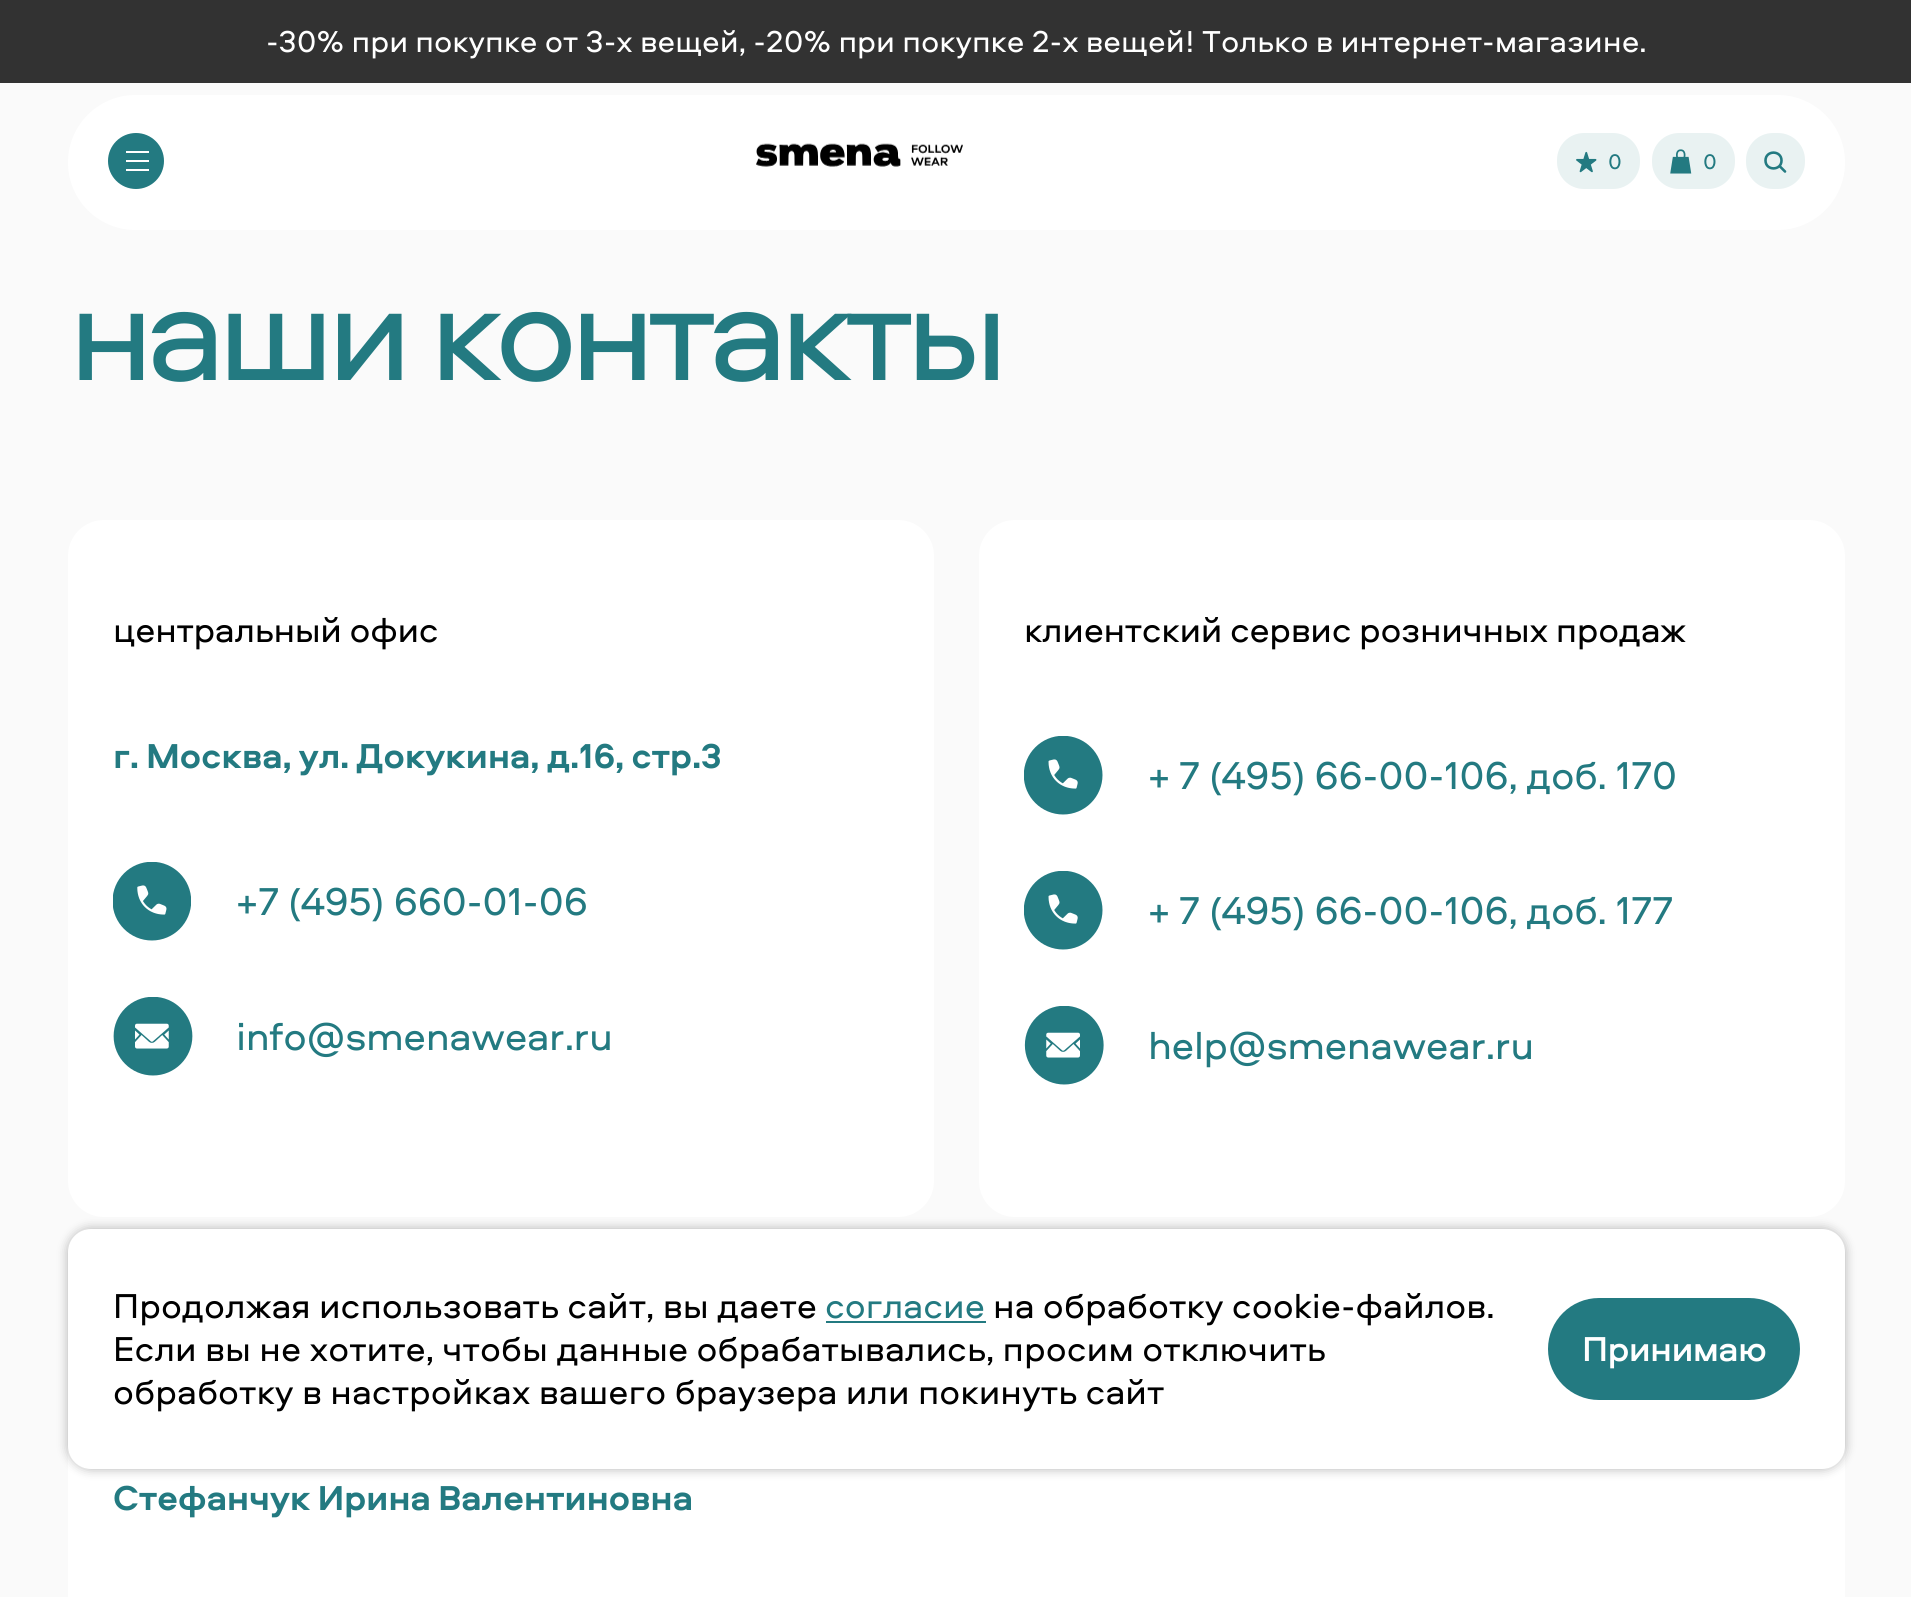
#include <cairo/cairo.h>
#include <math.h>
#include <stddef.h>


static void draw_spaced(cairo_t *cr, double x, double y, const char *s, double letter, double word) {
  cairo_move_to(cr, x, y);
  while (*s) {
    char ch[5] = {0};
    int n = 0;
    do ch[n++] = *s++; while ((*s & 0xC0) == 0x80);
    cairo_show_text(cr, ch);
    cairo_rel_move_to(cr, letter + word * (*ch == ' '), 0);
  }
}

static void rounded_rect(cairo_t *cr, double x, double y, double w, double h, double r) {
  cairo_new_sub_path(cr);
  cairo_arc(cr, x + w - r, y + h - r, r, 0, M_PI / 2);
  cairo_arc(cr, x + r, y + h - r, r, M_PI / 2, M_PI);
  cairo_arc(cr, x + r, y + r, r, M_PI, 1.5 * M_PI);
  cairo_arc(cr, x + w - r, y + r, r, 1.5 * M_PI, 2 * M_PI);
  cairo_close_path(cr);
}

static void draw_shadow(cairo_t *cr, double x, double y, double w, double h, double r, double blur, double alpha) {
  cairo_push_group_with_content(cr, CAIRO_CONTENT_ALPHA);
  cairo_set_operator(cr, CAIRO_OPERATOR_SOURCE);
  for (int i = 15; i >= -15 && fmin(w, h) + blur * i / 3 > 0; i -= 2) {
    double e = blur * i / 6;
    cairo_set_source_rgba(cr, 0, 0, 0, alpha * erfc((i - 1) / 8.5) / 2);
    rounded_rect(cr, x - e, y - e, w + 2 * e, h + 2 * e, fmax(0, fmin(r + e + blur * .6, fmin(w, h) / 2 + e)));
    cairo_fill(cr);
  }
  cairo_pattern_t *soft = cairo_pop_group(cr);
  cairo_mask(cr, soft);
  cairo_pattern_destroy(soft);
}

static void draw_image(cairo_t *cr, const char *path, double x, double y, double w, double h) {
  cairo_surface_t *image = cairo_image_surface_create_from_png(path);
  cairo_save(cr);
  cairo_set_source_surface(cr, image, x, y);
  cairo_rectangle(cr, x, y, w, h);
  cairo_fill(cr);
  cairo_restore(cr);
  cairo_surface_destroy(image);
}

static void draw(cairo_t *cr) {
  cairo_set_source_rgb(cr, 250 / 255.0, 250 / 255.0, 250 / 255.0);
  cairo_paint(cr);
  cairo_set_source_rgb(cr, 50 / 255.0, 50 / 255.0, 50 / 255.0);
  cairo_rectangle(cr, 0, 0, 1911, 83);
  cairo_fill(cr);
  cairo_set_source_rgb(cr, 1, 1, 1);
  rounded_rect(cr, 68, 95, 1777, 135, 67.5);
  cairo_fill(cr);
  cairo_set_source_rgb(cr, 35 / 255.0, 122 / 255.0, 129 / 255.0);
  cairo_arc(cr, 136, 161, 28, 0, 2 * M_PI);
  cairo_fill(cr);
  cairo_set_source_rgb(cr, 1, 1, 1);
  cairo_rectangle(cr, 126, 151, 23, 2);
  cairo_fill(cr);
  cairo_rectangle(cr, 126, 160, 23, 2);
  cairo_fill(cr);
  cairo_rectangle(cr, 126, 169, 23, 2);
  cairo_fill(cr);
  draw_image(cr, "images/1.png", 756, 143, 207, 24);
  cairo_set_source_rgb(cr, 233 / 255.0, 242 / 255.0, 242 / 255.0);
  rounded_rect(cr, 1557, 133, 83, 56, 27);
  cairo_fill(cr);
  draw_image(cr, "images/2.png", 1576, 151, 21, 22);
  rounded_rect(cr, 1652, 133, 83, 56, 27);
  cairo_fill(cr);
  draw_image(cr, "images/3.png", 1670, 149, 22, 25);
  rounded_rect(cr, 1746, 133, 59, 56, 27);
  cairo_fill(cr);
  cairo_new_path(cr);
  cairo_move_to(cr, 1779.5, 166);
  cairo_line_to(cr, 1785, 171.5);
  cairo_move_to(cr, 1781.5, 160.5);
  cairo_curve_to(cr, 1781.5, 171, 1765.5, 171, 1765.5, 160.5);
  cairo_curve_to(cr, 1765.5, 150, 1781.5, 150, 1781.5, 160.5);
  cairo_close_path(cr);
  cairo_set_source_rgb(cr, 35 / 255.0, 122 / 255.0, 129 / 255.0);
  cairo_set_line_width(cr, 2.6);
  cairo_set_line_cap(cr, CAIRO_LINE_CAP_ROUND);
  cairo_set_line_join(cr, CAIRO_LINE_JOIN_ROUND);
  cairo_stroke(cr);
  cairo_set_source_rgb(cr, 1, 1, 1);
  rounded_rect(cr, 68, 520, 866, 697, 36);
  cairo_fill(cr);
  draw_image(cr, "images/4.png", 113, 862, 78, 79);
  draw_image(cr, "images/5.png", 113, 997, 80, 79);
  rounded_rect(cr, 979, 520, 866, 697, 36);
  cairo_fill(cr);
  draw_image(cr, "images/6.png", 1024, 736, 79, 79);
  draw_image(cr, "images/6.png", 1024, 871, 79, 79);
  draw_image(cr, "images/7.png", 1024, 1006, 80, 79);
  cairo_rectangle(cr, 68, 1446, 1777, 151);
  cairo_fill(cr);
  cairo_set_source_rgb(cr, 0, 0, 0);
  draw_shadow(cr, 68, 1229, 1777, 240, 23, 5.5, 0.3);
  cairo_set_source_rgb(cr, 1, 1, 1);
  rounded_rect(cr, 68, 1229, 1777, 240, 23);
  cairo_fill(cr);
  cairo_set_source_rgb(cr, 35 / 255.0, 122 / 255.0, 129 / 255.0);
  cairo_rectangle(cr, 826, 1321, 160, 2);
  cairo_fill(cr);
  rounded_rect(cr, 1548, 1298, 252, 102, 51);
  cairo_fill(cr);
  cairo_select_font_face(cr, "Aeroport", CAIRO_FONT_SLANT_NORMAL, CAIRO_FONT_WEIGHT_NORMAL);
  cairo_set_font_size(cr, 31.5);
  cairo_set_source_rgb(cr, 1, 1, 1);
  cairo_move_to(cr, 266, 52);
  cairo_show_text(cr, "-30% при покупке от 3-х вещей, -20% при покупке 2-х вещей! Только в интернет-магазине.");
  cairo_set_font_size(cr, 22);
  cairo_set_source_rgb(cr, 35 / 255.0, 122 / 255.0, 129 / 255.0);
  cairo_move_to(cr, 1608, 169);
  cairo_show_text(cr, "0");
  cairo_move_to(cr, 1703, 169);
  cairo_show_text(cr, "0");
  cairo_set_font_size(cr, 144);
  draw_spaced(cr, 68, 380, "наши контакты", -8.6, 0);
  cairo_set_font_size(cr, 36);
  cairo_set_source_rgb(cr, 0, 0, 0);
  draw_spaced(cr, 113, 642, "центральный офис", -0.35, 0);
  cairo_select_font_face(cr, "Aeroport", CAIRO_FONT_SLANT_NORMAL, CAIRO_FONT_WEIGHT_BOLD);
  cairo_set_source_rgb(cr, 35 / 255.0, 122 / 255.0, 129 / 255.0);
  draw_spaced(cr, 113, 768, "г. Москва, ул. Докукина, д.16, стр.3", -0.35, 0);
  cairo_select_font_face(cr, "Aeroport", CAIRO_FONT_SLANT_NORMAL, CAIRO_FONT_WEIGHT_NORMAL);
  cairo_set_font_size(cr, 40.5);
  draw_spaced(cr, 236, 915, "+7 (495) 660-01-06", -0.4, 0);
  draw_spaced(cr, 236, 1050, "info@smenawear.ru", -0.4, 0);
  cairo_set_font_size(cr, 36);
  cairo_set_source_rgb(cr, 0, 0, 0);
  draw_spaced(cr, 1024, 642, "клиентский сервис розничных продаж", -0.35, 0);
  cairo_set_font_size(cr, 40.5);
  cairo_set_source_rgb(cr, 35 / 255.0, 122 / 255.0, 129 / 255.0);
  draw_spaced(cr, 1148, 789, "+ 7 (495) 66-00-106, доб. 170", -0.4, 0);
  draw_spaced(cr, 1148, 924, "+ 7 (495) 66-00-106, доб. 177", -0.4, 0);
  draw_spaced(cr, 1148, 1059, "help@smenawear.ru", -0.4, 0);
  cairo_select_font_face(cr, "Aeroport", CAIRO_FONT_SLANT_NORMAL, CAIRO_FONT_WEIGHT_BOLD);
  cairo_set_font_size(cr, 36);
  draw_spaced(cr, 113, 1510, "Стефанчук Ирина Валентиновна", -0.35, 0);
  cairo_select_font_face(cr, "Aeroport", CAIRO_FONT_SLANT_NORMAL, CAIRO_FONT_WEIGHT_NORMAL);
  cairo_set_source_rgb(cr, 0, 0, 0);
  cairo_move_to(cr, 113, 1318);
  cairo_show_text(cr, "Продолжая использовать сайт, вы даете");
  cairo_set_source_rgb(cr, 35 / 255.0, 122 / 255.0, 129 / 255.0);
  cairo_move_to(cr, 825, 1318);
  cairo_show_text(cr, "согласие");
  cairo_set_source_rgb(cr, 0, 0, 0);
  cairo_move_to(cr, 993, 1318);
  cairo_show_text(cr, "на обработку cookie-файлов.");
  cairo_move_to(cr, 113, 1361);
  cairo_show_text(cr, "Если вы не хотите, чтобы данные обрабатывались, просим отключить");
  cairo_move_to(cr, 113, 1404);
  cairo_show_text(cr, "обработку в настройках вашего браузера или покинуть сайт");
  cairo_select_font_face(cr, "Aeroport Medium", CAIRO_FONT_SLANT_NORMAL, CAIRO_FONT_WEIGHT_NORMAL);
  cairo_set_source_rgb(cr, 1, 1, 1);
  draw_spaced(cr, 1582, 1361, "Принимаю", -0.75, 0);
}

int main(void) {
  cairo_surface_t *surface = cairo_image_surface_create(CAIRO_FORMAT_RGB24, 1911, 1597);
  cairo_t *cr = cairo_create(surface);
  cairo_font_options_t *options = cairo_font_options_create();
  cairo_font_options_set_hint_metrics(options, CAIRO_HINT_METRICS_OFF);
  cairo_font_options_set_hint_style(options, CAIRO_HINT_STYLE_NONE);
  cairo_set_font_options(cr, options);
  cairo_set_miter_limit(cr, 4);
  draw(cr);
  cairo_surface_write_to_png(surface, "out.png");
  cairo_font_options_destroy(options);
  cairo_destroy(cr);
  cairo_surface_destroy(surface);
  return 0;
}
